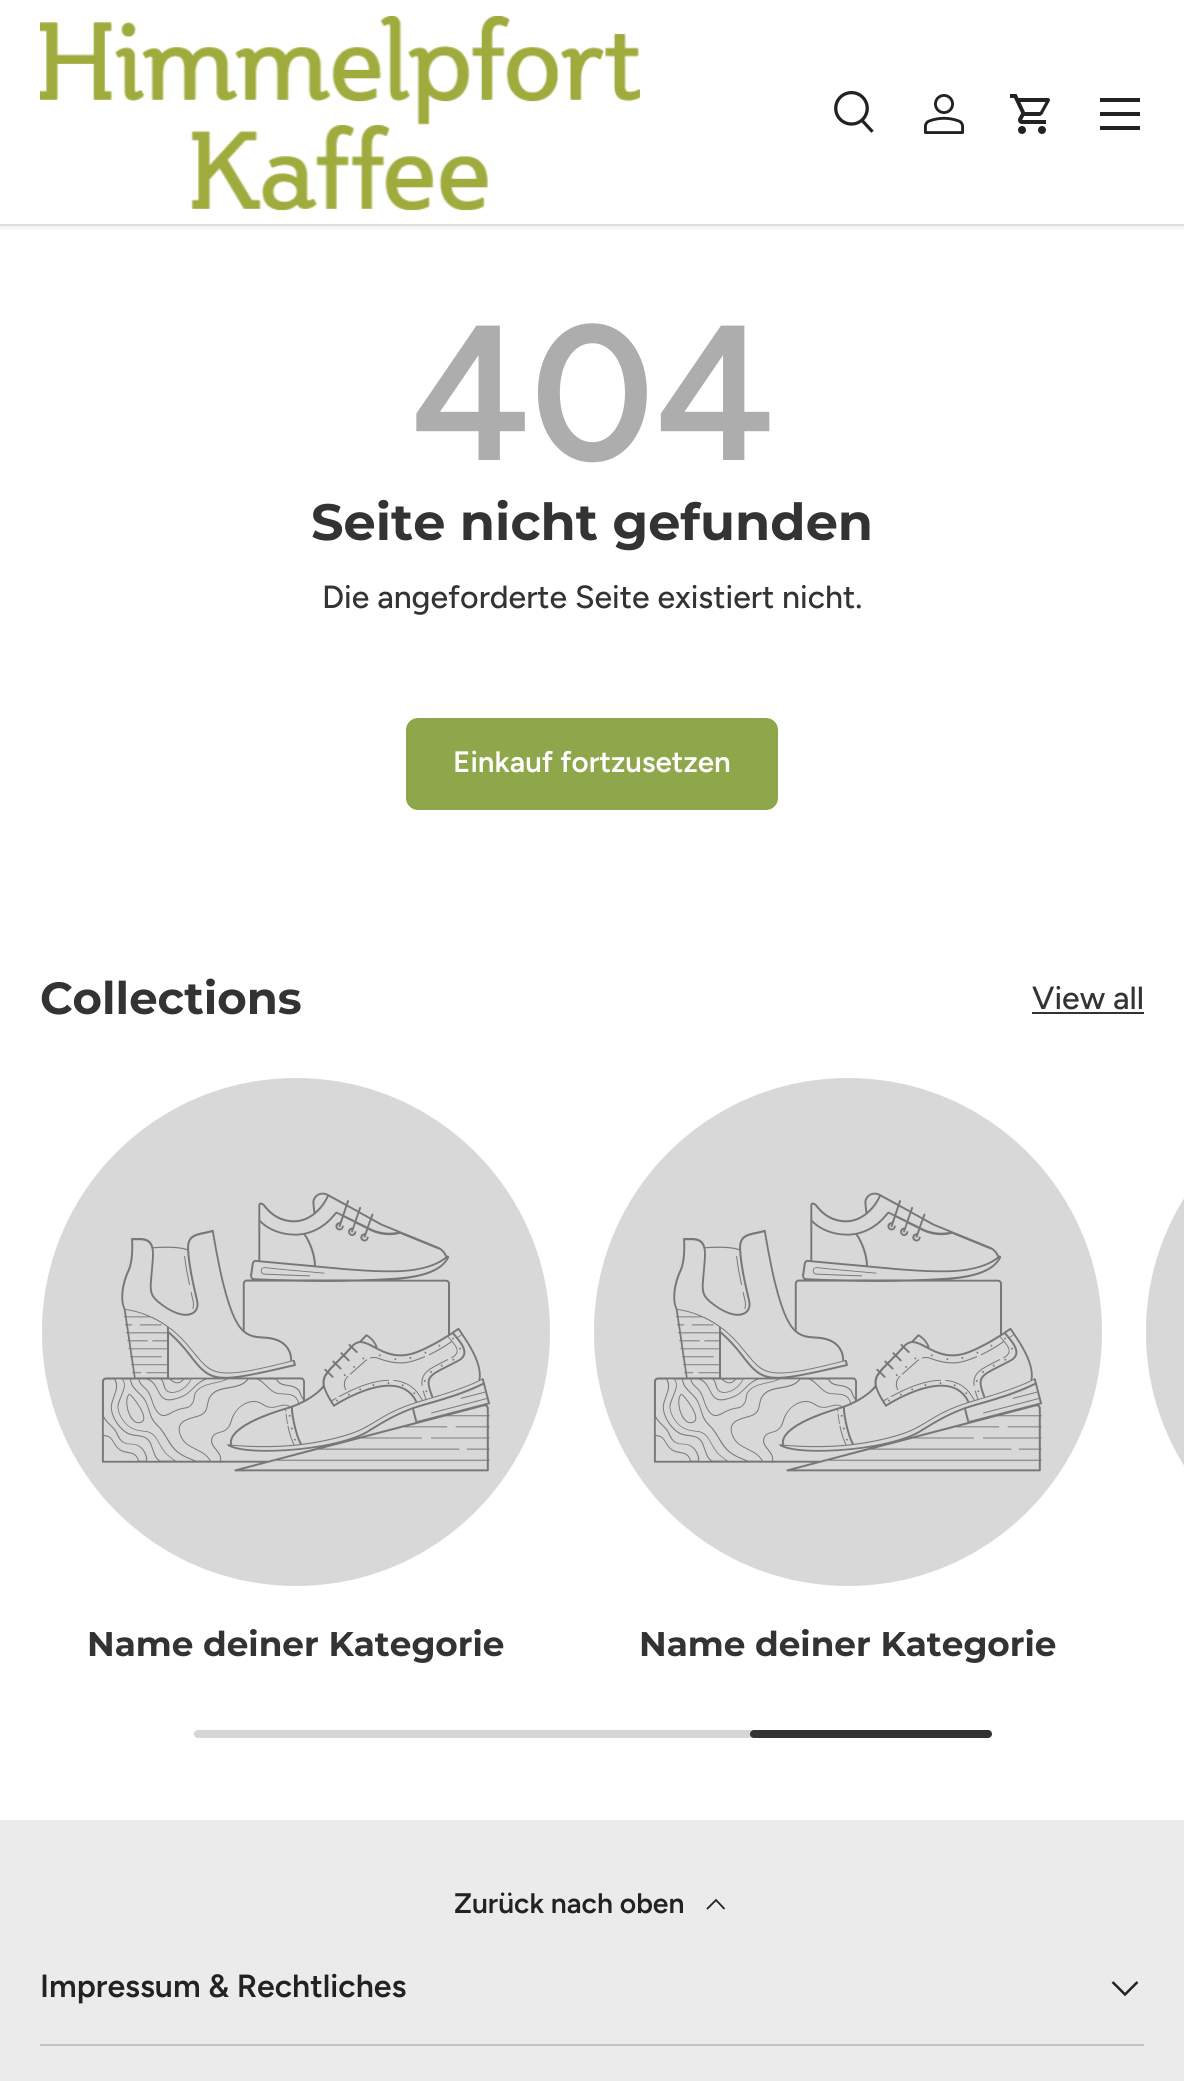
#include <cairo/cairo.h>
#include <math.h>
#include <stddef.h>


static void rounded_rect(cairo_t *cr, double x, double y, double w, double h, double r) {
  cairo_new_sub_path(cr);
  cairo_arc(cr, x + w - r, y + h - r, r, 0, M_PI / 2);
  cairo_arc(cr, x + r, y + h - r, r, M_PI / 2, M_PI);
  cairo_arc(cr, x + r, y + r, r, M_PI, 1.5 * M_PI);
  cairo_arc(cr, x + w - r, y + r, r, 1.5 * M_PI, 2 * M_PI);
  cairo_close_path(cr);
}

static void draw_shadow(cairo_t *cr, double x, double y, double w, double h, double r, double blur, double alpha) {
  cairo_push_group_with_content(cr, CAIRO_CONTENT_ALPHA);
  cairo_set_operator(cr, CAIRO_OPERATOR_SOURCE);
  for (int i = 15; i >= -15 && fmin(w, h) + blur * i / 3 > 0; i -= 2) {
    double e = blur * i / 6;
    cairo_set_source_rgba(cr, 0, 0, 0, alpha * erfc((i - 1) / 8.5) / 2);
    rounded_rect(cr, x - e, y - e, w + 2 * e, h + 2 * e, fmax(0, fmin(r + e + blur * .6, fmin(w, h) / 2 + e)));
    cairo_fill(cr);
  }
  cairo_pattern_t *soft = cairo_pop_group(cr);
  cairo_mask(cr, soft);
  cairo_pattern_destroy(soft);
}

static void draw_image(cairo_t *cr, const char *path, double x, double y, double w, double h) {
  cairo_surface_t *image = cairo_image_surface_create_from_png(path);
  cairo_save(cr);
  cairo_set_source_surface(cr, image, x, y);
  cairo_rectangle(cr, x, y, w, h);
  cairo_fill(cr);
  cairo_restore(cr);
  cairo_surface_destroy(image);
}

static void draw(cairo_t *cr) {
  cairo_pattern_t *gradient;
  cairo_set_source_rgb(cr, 1, 1, 1);
  cairo_paint(cr);
  cairo_save(cr);
  cairo_rectangle(cr, 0, 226, 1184, 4);
  cairo_clip(cr);
  cairo_set_source_rgb(cr, 0, 0, 0);
  draw_shadow(cr, -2, -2, 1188, 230, 0, 3, 0.08);
  cairo_restore(cr);
  draw_image(cr, "images/1.png", 40, 16, 600, 195);
  draw_image(cr, "images/2.png", 834, 91, 40, 42);
  draw_image(cr, "images/3.png", 924, 94, 40, 40);
  draw_image(cr, "images/4.png", 1010, 94, 40, 40);
  cairo_set_source_rgb(cr, 34 / 255.0, 34 / 255.0, 34 / 255.0);
  cairo_rectangle(cr, 1100, 98, 40, 4);
  cairo_fill(cr);
  cairo_rectangle(cr, 1100, 126, 40, 4);
  cairo_fill(cr);
  cairo_rectangle(cr, 1100, 112, 40, 4);
  cairo_fill(cr);
  cairo_set_source_rgb(cr, 222 / 255.0, 222 / 255.0, 222 / 255.0);
  cairo_rectangle(cr, 0, 224, 1184, 2);
  cairo_fill(cr);
  gradient = cairo_pattern_create_linear(-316, 630, 756, 898);
  cairo_pattern_add_color_stop_rgba(gradient, 0.6, 164 / 255.0, 185 / 255.0, 111 / 255.0, 1);
  cairo_pattern_add_color_stop_rgba(gradient, 0.6, 141 / 255.0, 167 / 255.0, 74 / 255.0, 1);
  cairo_pattern_add_color_stop_rgba(gradient, 1, 141 / 255.0, 167 / 255.0, 74 / 255.0, 1);
  cairo_set_source(cr, gradient);
  cairo_pattern_destroy(gradient);
  rounded_rect(cr, 406, 718, 372, 92, 12);
  cairo_fill(cr);
  cairo_set_source_rgb(cr, 51 / 255.0, 51 / 255.0, 51 / 255.0);
  cairo_rectangle(cr, 1032, 1012, 112, 2);
  cairo_fill(cr);
  cairo_set_source_rgb(cr, 250 / 255.0, 250 / 255.0, 250 / 255.0);
  cairo_new_path(cr);
  cairo_move_to(cr, 1400, 1078);
  cairo_line_to(cr, 1184, 1078);
  cairo_line_to(cr, 1184, 1586);
  cairo_line_to(cr, 1400, 1586);
  cairo_curve_to(cr, 1259.5, 1586, 1146, 1472.5, 1146, 1332);
  cairo_curve_to(cr, 1146, 1191.5, 1259.5, 1078, 1400, 1078);
  cairo_close_path(cr);
  cairo_fill(cr);
  cairo_save(cr);
  rounded_rect(cr, 1146, 1078, 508, 508, 254);
  cairo_clip(cr);
  rounded_rect(cr, 1146, 1078, 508, 508, 254);
  cairo_clip(cr);
  cairo_set_source_rgb(cr, 216 / 255.0, 216 / 255.0, 216 / 255.0);
  cairo_rectangle(cr, 1146, 1199, 38, 266);
  cairo_fill(cr);
  cairo_restore(cr);
  cairo_set_source_rgb(cr, 216 / 255.0, 216 / 255.0, 216 / 255.0);
  cairo_arc(cr, 296, 1332, 254, 0, 2 * M_PI);
  cairo_fill(cr);
  draw_image(cr, "images/5.png", 101, 1192, 389, 280);
  cairo_arc(cr, 848, 1332, 254, 0, 2 * M_PI);
  cairo_fill(cr);
  draw_image(cr, "images/5.png", 653, 1192, 389, 280);
  cairo_set_source_rgb(cr, 214 / 255.0, 214 / 255.0, 214 / 255.0);
  rounded_rect(cr, 194, 1730, 796, 8, 4);
  cairo_fill(cr);
  cairo_set_source_rgb(cr, 51 / 255.0, 51 / 255.0, 51 / 255.0);
  rounded_rect(cr, 750, 1730, 242, 8, 4);
  cairo_fill(cr);
  cairo_set_source_rgb(cr, 235 / 255.0, 235 / 255.0, 235 / 255.0);
  cairo_rectangle(cr, 0, 1820, 1184, 261);
  cairo_fill(cr);
  cairo_new_path(cr);
  cairo_move_to(cr, 707, 1909);
  cairo_line_to(cr, 716, 1900);
  cairo_line_to(cr, 724.5, 1909);
  cairo_set_source_rgb(cr, 34 / 255.0, 34 / 255.0, 34 / 255.0);
  cairo_set_line_width(cr, 1.8);
  cairo_stroke(cr);
  cairo_set_source_rgb(cr, 195 / 255.0, 195 / 255.0, 195 / 255.0);
  cairo_rectangle(cr, 40, 2044, 1104, 2);
  cairo_fill(cr);
  cairo_new_path(cr);
  cairo_move_to(cr, 1137.5, 1982);
  cairo_line_to(cr, 1125, 1994.5);
  cairo_line_to(cr, 1112.5, 1982);
  cairo_set_source_rgb(cr, 34 / 255.0, 34 / 255.0, 34 / 255.0);
  cairo_set_line_width(cr, 2.5);
  cairo_stroke(cr);
  cairo_select_font_face(cr, "Figtree SemiBold", CAIRO_FONT_SLANT_NORMAL, CAIRO_FONT_WEIGHT_NORMAL);
  cairo_set_font_size(cr, 192);
  cairo_set_source_rgb(cr, 173 / 255.0, 173 / 255.0, 173 / 255.0);
  cairo_move_to(cr, 410, 460);
  cairo_show_text(cr, "404");
  cairo_select_font_face(cr, "Montserrat", CAIRO_FONT_SLANT_NORMAL, CAIRO_FONT_WEIGHT_BOLD);
  cairo_set_font_size(cr, 51);
  cairo_set_source_rgb(cr, 51 / 255.0, 51 / 255.0, 51 / 255.0);
  cairo_move_to(cr, 311, 540);
  cairo_show_text(cr, "Seite nicht gefunden");
  cairo_select_font_face(cr, "Figtree Medium", CAIRO_FONT_SLANT_NORMAL, CAIRO_FONT_WEIGHT_NORMAL);
  cairo_set_font_size(cr, 32);
  cairo_move_to(cr, 322, 608);
  cairo_show_text(cr, "Die angeforderte Seite existiert nicht.");
  cairo_select_font_face(cr, "Figtree SemiBold", CAIRO_FONT_SLANT_NORMAL, CAIRO_FONT_WEIGHT_NORMAL);
  cairo_set_font_size(cr, 29.5);
  cairo_set_source_rgb(cr, 1, 1, 1);
  cairo_move_to(cr, 453, 772);
  cairo_show_text(cr, "Einkauf fortzusetzen");
  cairo_select_font_face(cr, "Montserrat", CAIRO_FONT_SLANT_NORMAL, CAIRO_FONT_WEIGHT_BOLD);
  cairo_set_font_size(cr, 45);
  cairo_set_source_rgb(cr, 51 / 255.0, 51 / 255.0, 51 / 255.0);
  cairo_move_to(cr, 40, 1014);
  cairo_show_text(cr, "Collections");
  cairo_select_font_face(cr, "Figtree Medium", CAIRO_FONT_SLANT_NORMAL, CAIRO_FONT_WEIGHT_NORMAL);
  cairo_set_font_size(cr, 32);
  cairo_move_to(cr, 1032, 1009);
  cairo_show_text(cr, "View all");
  cairo_select_font_face(cr, "Montserrat", CAIRO_FONT_SLANT_NORMAL, CAIRO_FONT_WEIGHT_BOLD);
  cairo_set_font_size(cr, 34.25);
  cairo_move_to(cr, 87, 1656);
  cairo_show_text(cr, "Name deiner Kategorie");
  cairo_move_to(cr, 639, 1656);
  cairo_show_text(cr, "Name deiner Kategorie");
  cairo_select_font_face(cr, "Figtree SemiBold", CAIRO_FONT_SLANT_NORMAL, CAIRO_FONT_WEIGHT_NORMAL);
  cairo_set_font_size(cr, 28.25);
  cairo_set_source_rgb(cr, 34 / 255.0, 34 / 255.0, 34 / 255.0);
  cairo_move_to(cr, 454, 1913);
  cairo_show_text(cr, "Zurück nach oben");
  cairo_set_font_size(cr, 32);
  cairo_move_to(cr, 40, 1997);
  cairo_show_text(cr, "Impressum & Rechtliches");
}

int main(void) {
  cairo_surface_t *surface = cairo_image_surface_create(CAIRO_FORMAT_RGB24, 1184, 2081);
  cairo_t *cr = cairo_create(surface);
  cairo_font_options_t *options = cairo_font_options_create();
  cairo_font_options_set_hint_metrics(options, CAIRO_HINT_METRICS_OFF);
  cairo_font_options_set_hint_style(options, CAIRO_HINT_STYLE_NONE);
  cairo_set_font_options(cr, options);
  cairo_set_miter_limit(cr, 4);
  draw(cr);
  cairo_surface_write_to_png(surface, "out.png");
  cairo_font_options_destroy(options);
  cairo_destroy(cr);
  cairo_surface_destroy(surface);
  return 0;
}
